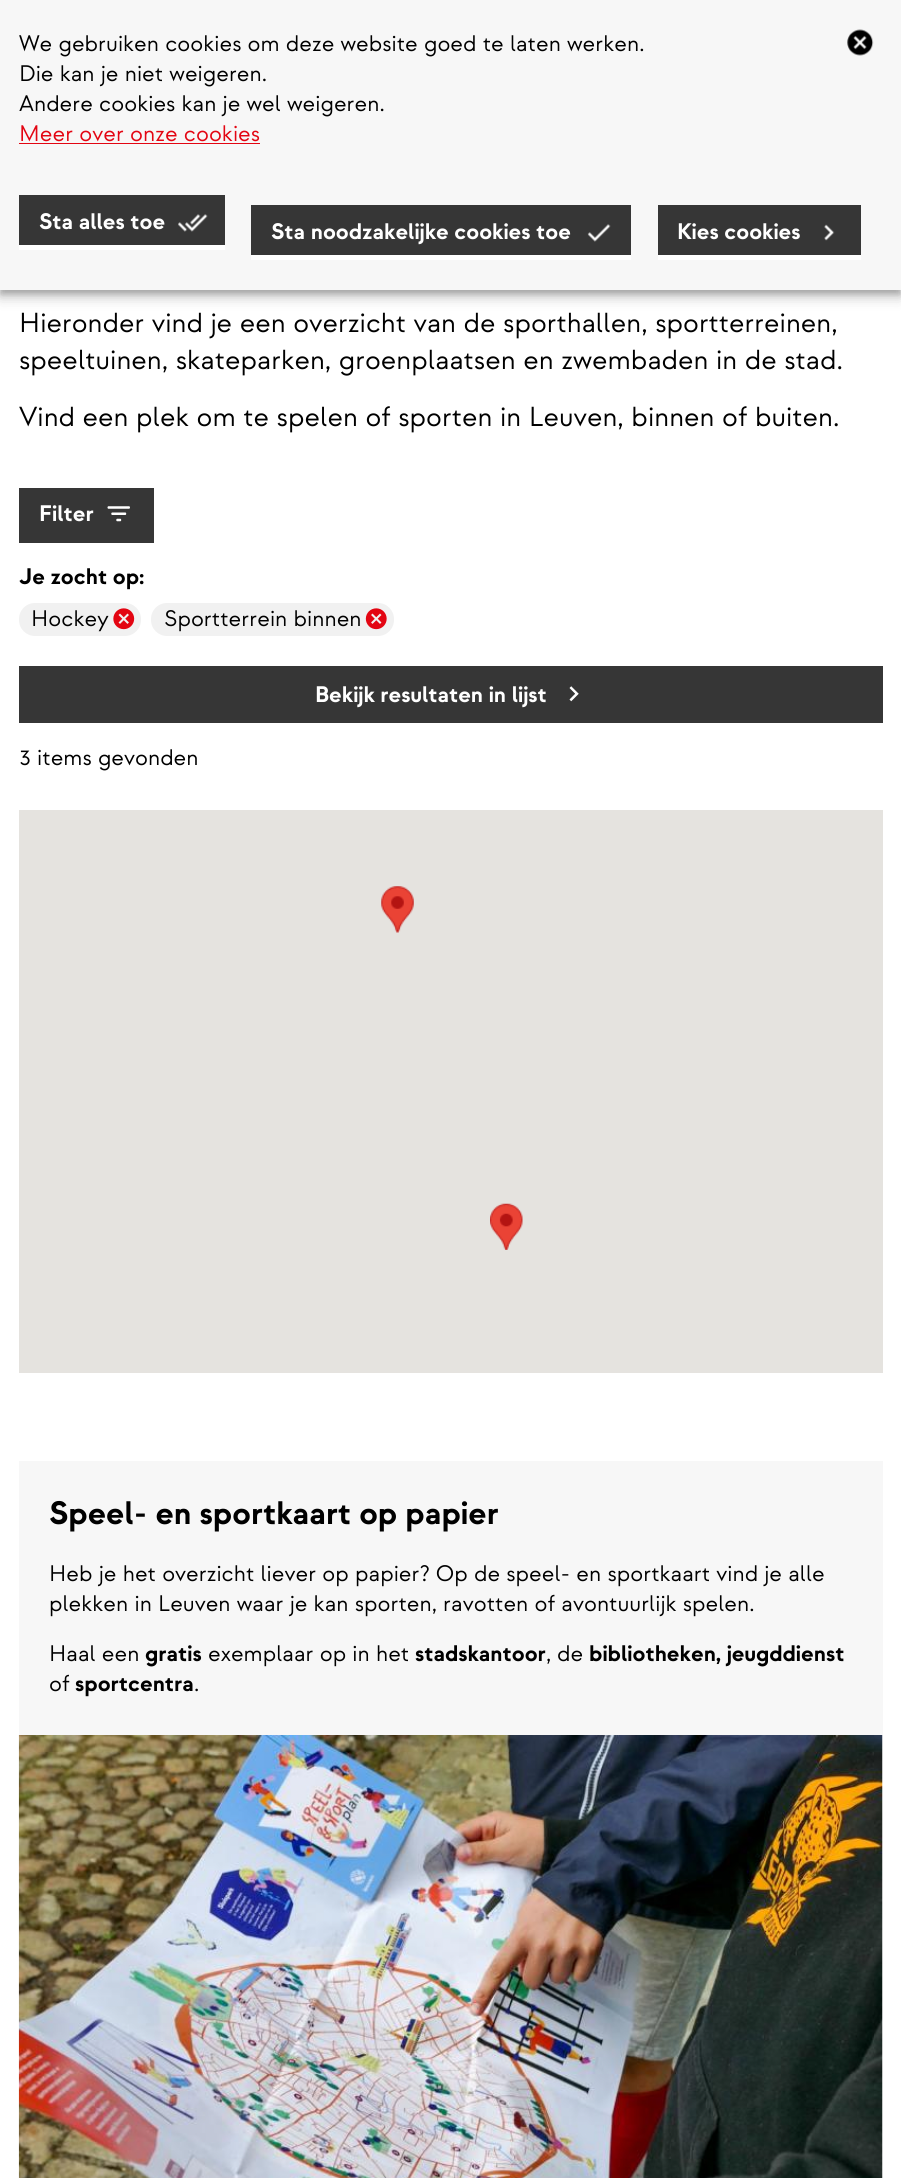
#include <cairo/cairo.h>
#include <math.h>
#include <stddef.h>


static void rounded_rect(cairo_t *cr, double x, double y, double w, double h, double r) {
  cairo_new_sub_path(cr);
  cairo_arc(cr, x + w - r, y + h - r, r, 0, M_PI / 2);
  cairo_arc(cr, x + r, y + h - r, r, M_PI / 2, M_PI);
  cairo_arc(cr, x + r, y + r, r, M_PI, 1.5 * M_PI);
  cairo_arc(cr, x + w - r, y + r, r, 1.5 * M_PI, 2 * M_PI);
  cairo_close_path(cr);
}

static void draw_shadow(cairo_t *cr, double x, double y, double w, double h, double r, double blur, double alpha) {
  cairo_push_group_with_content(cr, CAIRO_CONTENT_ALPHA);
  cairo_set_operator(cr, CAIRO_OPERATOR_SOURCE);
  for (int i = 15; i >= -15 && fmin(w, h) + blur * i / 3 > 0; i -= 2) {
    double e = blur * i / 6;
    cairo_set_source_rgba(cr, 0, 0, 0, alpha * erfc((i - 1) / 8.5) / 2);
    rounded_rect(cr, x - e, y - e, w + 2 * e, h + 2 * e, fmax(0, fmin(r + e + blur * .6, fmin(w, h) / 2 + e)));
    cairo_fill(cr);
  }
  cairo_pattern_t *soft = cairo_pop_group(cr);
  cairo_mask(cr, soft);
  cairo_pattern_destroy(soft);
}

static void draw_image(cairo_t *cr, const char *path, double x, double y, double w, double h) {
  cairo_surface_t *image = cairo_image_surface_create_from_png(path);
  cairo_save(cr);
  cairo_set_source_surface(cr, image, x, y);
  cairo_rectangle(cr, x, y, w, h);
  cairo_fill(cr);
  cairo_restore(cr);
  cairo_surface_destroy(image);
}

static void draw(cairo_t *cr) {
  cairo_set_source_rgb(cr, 1, 1, 1);
  cairo_paint(cr);
  cairo_set_source_rgb(cr, 0, 0, 0);
  draw_shadow(cr, 0, 8, 901, 290, 0, 6, 0.14);
  draw_shadow(cr, 0, 1, 901, 290, 0, 11, 0.12);
  draw_shadow(cr, 0, 4, 901, 290, 0, 3, 0.2);
  cairo_set_source_rgb(cr, 247 / 255.0, 247 / 255.0, 247 / 255.0);
  cairo_rectangle(cr, 0, 0, 901, 290);
  cairo_fill(cr);
  cairo_set_source_rgb(cr, 227 / 255.0, 5 / 255.0, 18 / 255.0);
  cairo_rectangle(cr, 19, 143, 241, 1);
  cairo_fill(cr);
  draw_image(cr, "images/1.png", 847, 29, 27, 27);
  cairo_set_source_rgb(cr, 54 / 255.0, 54 / 255.0, 54 / 255.0);
  cairo_rectangle(cr, 19, 195, 206, 50);
  cairo_fill(cr);
  cairo_set_source_rgb(cr, 1, 1, 1);
  cairo_rectangle(cr, 19, 245, 206, 5);
  cairo_fill(cr);
  draw_image(cr, "images/2.png", 178, 214, 30, 18);
  cairo_set_source_rgb(cr, 54 / 255.0, 54 / 255.0, 54 / 255.0);
  cairo_rectangle(cr, 251, 205, 380, 50);
  cairo_fill(cr);
  cairo_set_source_rgb(cr, 1, 1, 1);
  cairo_rectangle(cr, 251, 255, 380, 5);
  cairo_fill(cr);
  draw_image(cr, "images/3.png", 587, 224, 24, 18);
  cairo_set_source_rgb(cr, 54 / 255.0, 54 / 255.0, 54 / 255.0);
  cairo_rectangle(cr, 658, 205, 203, 50);
  cairo_fill(cr);
  cairo_set_source_rgb(cr, 1, 1, 1);
  cairo_rectangle(cr, 658, 255, 203, 5);
  cairo_fill(cr);
  draw_image(cr, "images/4.png", 824, 224, 11, 17);
  cairo_set_source_rgb(cr, 54 / 255.0, 54 / 255.0, 54 / 255.0);
  cairo_rectangle(cr, 19, 488, 135, 55);
  cairo_fill(cr);
  draw_image(cr, "images/5.png", 107, 506, 23, 16);
  cairo_set_source_rgb(cr, 241 / 255.0, 241 / 255.0, 241 / 255.0);
  rounded_rect(cr, 19, 603, 122, 33, 16);
  cairo_fill(cr);
  draw_image(cr, "images/6.png", 113, 608, 22, 22);
  rounded_rect(cr, 151, 603, 243, 33, 16);
  cairo_fill(cr);
  draw_image(cr, "images/7.png", 365, 608, 22, 22);
  cairo_set_source_rgb(cr, 54 / 255.0, 54 / 255.0, 54 / 255.0);
  cairo_rectangle(cr, 19, 666, 864, 57);
  cairo_fill(cr);
  draw_image(cr, "images/8.png", 569, 686, 10, 16);
  cairo_set_source_rgb(cr, 229 / 255.0, 227 / 255.0, 223 / 255.0);
  cairo_rectangle(cr, 19, 810, 864, 563);
  cairo_fill(cr);
  draw_image(cr, "images/9.png", 381, 886, 33, 47);
  draw_image(cr, "images/10.png", 490, 1203, 33, 47);
  cairo_set_source_rgb(cr, 247 / 255.0, 247 / 255.0, 247 / 255.0);
  cairo_rectangle(cr, 19, 1461, 864, 274);
  cairo_fill(cr);
  draw_image(cr, "images/11.png", 18, 1735, 865, 443);
  cairo_select_font_face(cr, "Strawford", CAIRO_FONT_SLANT_NORMAL, CAIRO_FONT_WEIGHT_NORMAL);
  cairo_set_font_size(cr, 22.5);
  cairo_set_source_rgb(cr, 0, 0, 0);
  cairo_move_to(cr, 19, 51);
  cairo_show_text(cr, "We gebruiken cookies om deze website goed te laten werken.");
  cairo_move_to(cr, 19, 81);
  cairo_show_text(cr, "Die kan je niet weigeren.");
  cairo_move_to(cr, 19, 111);
  cairo_show_text(cr, "Andere cookies kan je wel weigeren.");
  cairo_set_source_rgb(cr, 227 / 255.0, 5 / 255.0, 18 / 255.0);
  cairo_move_to(cr, 19, 141);
  cairo_show_text(cr, "Meer over onze cookies");
  cairo_select_font_face(cr, "Strawford", CAIRO_FONT_SLANT_NORMAL, CAIRO_FONT_WEIGHT_BOLD);
  cairo_set_source_rgb(cr, 1, 1, 1);
  cairo_move_to(cr, 39, 229);
  cairo_show_text(cr, "Sta alles toe");
  cairo_move_to(cr, 271, 239);
  cairo_show_text(cr, "Sta noodzakelijke cookies toe");
  cairo_move_to(cr, 677, 239);
  cairo_show_text(cr, "Kies cookies");
  cairo_select_font_face(cr, "Strawford", CAIRO_FONT_SLANT_NORMAL, CAIRO_FONT_WEIGHT_NORMAL);
  cairo_set_font_size(cr, 27.5);
  cairo_set_source_rgb(cr, 0, 0, 0);
  cairo_move_to(cr, 19, 332);
  cairo_show_text(cr, "Hieronder vind je een overzicht van de sporthallen, sportterreinen,");
  cairo_move_to(cr, 19, 369);
  cairo_show_text(cr, "speeltuinen, skateparken, groenplaatsen en zwembaden in de stad.");
  cairo_move_to(cr, 19, 426);
  cairo_show_text(cr, "Vind een plek om te spelen of sporten in Leuven, binnen of buiten.");
  cairo_select_font_face(cr, "Strawford", CAIRO_FONT_SLANT_NORMAL, CAIRO_FONT_WEIGHT_BOLD);
  cairo_set_font_size(cr, 22.5);
  cairo_set_source_rgb(cr, 1, 1, 1);
  cairo_move_to(cr, 39, 521);
  cairo_show_text(cr, "Filter");
  cairo_set_source_rgb(cr, 0, 0, 0);
  cairo_move_to(cr, 19, 584);
  cairo_show_text(cr, "Je zocht op:");
  cairo_select_font_face(cr, "Strawford", CAIRO_FONT_SLANT_NORMAL, CAIRO_FONT_WEIGHT_NORMAL);
  cairo_move_to(cr, 31, 626);
  cairo_show_text(cr, "Hockey");
  cairo_move_to(cr, 164, 626);
  cairo_show_text(cr, "Sportterrein binnen");
  cairo_select_font_face(cr, "Strawford", CAIRO_FONT_SLANT_NORMAL, CAIRO_FONT_WEIGHT_BOLD);
  cairo_set_source_rgb(cr, 1, 1, 1);
  cairo_move_to(cr, 315, 702);
  cairo_show_text(cr, "Bekijk resultaten in lijst");
  cairo_select_font_face(cr, "Strawford", CAIRO_FONT_SLANT_NORMAL, CAIRO_FONT_WEIGHT_NORMAL);
  cairo_set_source_rgb(cr, 0, 0, 0);
  cairo_move_to(cr, 19, 765);
  cairo_show_text(cr, "3 items gevonden");
  cairo_select_font_face(cr, "Strawford", CAIRO_FONT_SLANT_NORMAL, CAIRO_FONT_WEIGHT_BOLD);
  cairo_set_font_size(cr, 32.5);
  cairo_move_to(cr, 49, 1524);
  cairo_show_text(cr, "Speel- en sportkaart op papier");
  cairo_select_font_face(cr, "Strawford", CAIRO_FONT_SLANT_NORMAL, CAIRO_FONT_WEIGHT_NORMAL);
  cairo_set_font_size(cr, 22.5);
  cairo_move_to(cr, 49, 1581);
  cairo_show_text(cr, "Heb je het overzicht liever op papier? Op de speel- en sportkaart vind je alle");
  cairo_move_to(cr, 49, 1611);
  cairo_show_text(cr, "plekken in Leuven waar je kan sporten, ravotten of avontuurlijk spelen.");
  cairo_move_to(cr, 49, 1661);
  cairo_show_text(cr, "Haal een");
  cairo_select_font_face(cr, "Strawford", CAIRO_FONT_SLANT_NORMAL, CAIRO_FONT_WEIGHT_BOLD);
  cairo_move_to(cr, 145, 1661);
  cairo_show_text(cr, "gratis");
  cairo_select_font_face(cr, "Strawford", CAIRO_FONT_SLANT_NORMAL, CAIRO_FONT_WEIGHT_NORMAL);
  cairo_move_to(cr, 208, 1661);
  cairo_show_text(cr, "exemplaar op in het");
  cairo_select_font_face(cr, "Strawford", CAIRO_FONT_SLANT_NORMAL, CAIRO_FONT_WEIGHT_BOLD);
  cairo_move_to(cr, 415, 1661);
  cairo_show_text(cr, "stadskantoor");
  cairo_select_font_face(cr, "Strawford", CAIRO_FONT_SLANT_NORMAL, CAIRO_FONT_WEIGHT_NORMAL);
  cairo_move_to(cr, 546, 1661);
  cairo_show_text(cr, ",");
  cairo_move_to(cr, 557, 1661);
  cairo_show_text(cr, "de");
  cairo_select_font_face(cr, "Strawford", CAIRO_FONT_SLANT_NORMAL, CAIRO_FONT_WEIGHT_BOLD);
  cairo_move_to(cr, 589, 1661);
  cairo_show_text(cr, "bibliotheken, jeugddienst");
  cairo_select_font_face(cr, "Strawford", CAIRO_FONT_SLANT_NORMAL, CAIRO_FONT_WEIGHT_NORMAL);
  cairo_move_to(cr, 49, 1691);
  cairo_show_text(cr, "of");
  cairo_select_font_face(cr, "Strawford", CAIRO_FONT_SLANT_NORMAL, CAIRO_FONT_WEIGHT_BOLD);
  cairo_move_to(cr, 75, 1691);
  cairo_show_text(cr, "sportcentra");
  cairo_select_font_face(cr, "Strawford", CAIRO_FONT_SLANT_NORMAL, CAIRO_FONT_WEIGHT_NORMAL);
  cairo_move_to(cr, 194, 1691);
  cairo_show_text(cr, ".");
}

int main(void) {
  cairo_surface_t *surface = cairo_image_surface_create(CAIRO_FORMAT_RGB24, 901, 2178);
  cairo_t *cr = cairo_create(surface);
  cairo_font_options_t *options = cairo_font_options_create();
  cairo_font_options_set_hint_metrics(options, CAIRO_HINT_METRICS_OFF);
  cairo_font_options_set_hint_style(options, CAIRO_HINT_STYLE_NONE);
  cairo_set_font_options(cr, options);
  cairo_set_miter_limit(cr, 4);
  draw(cr);
  cairo_surface_write_to_png(surface, "out.png");
  cairo_font_options_destroy(options);
  cairo_destroy(cr);
  cairo_surface_destroy(surface);
  return 0;
}
